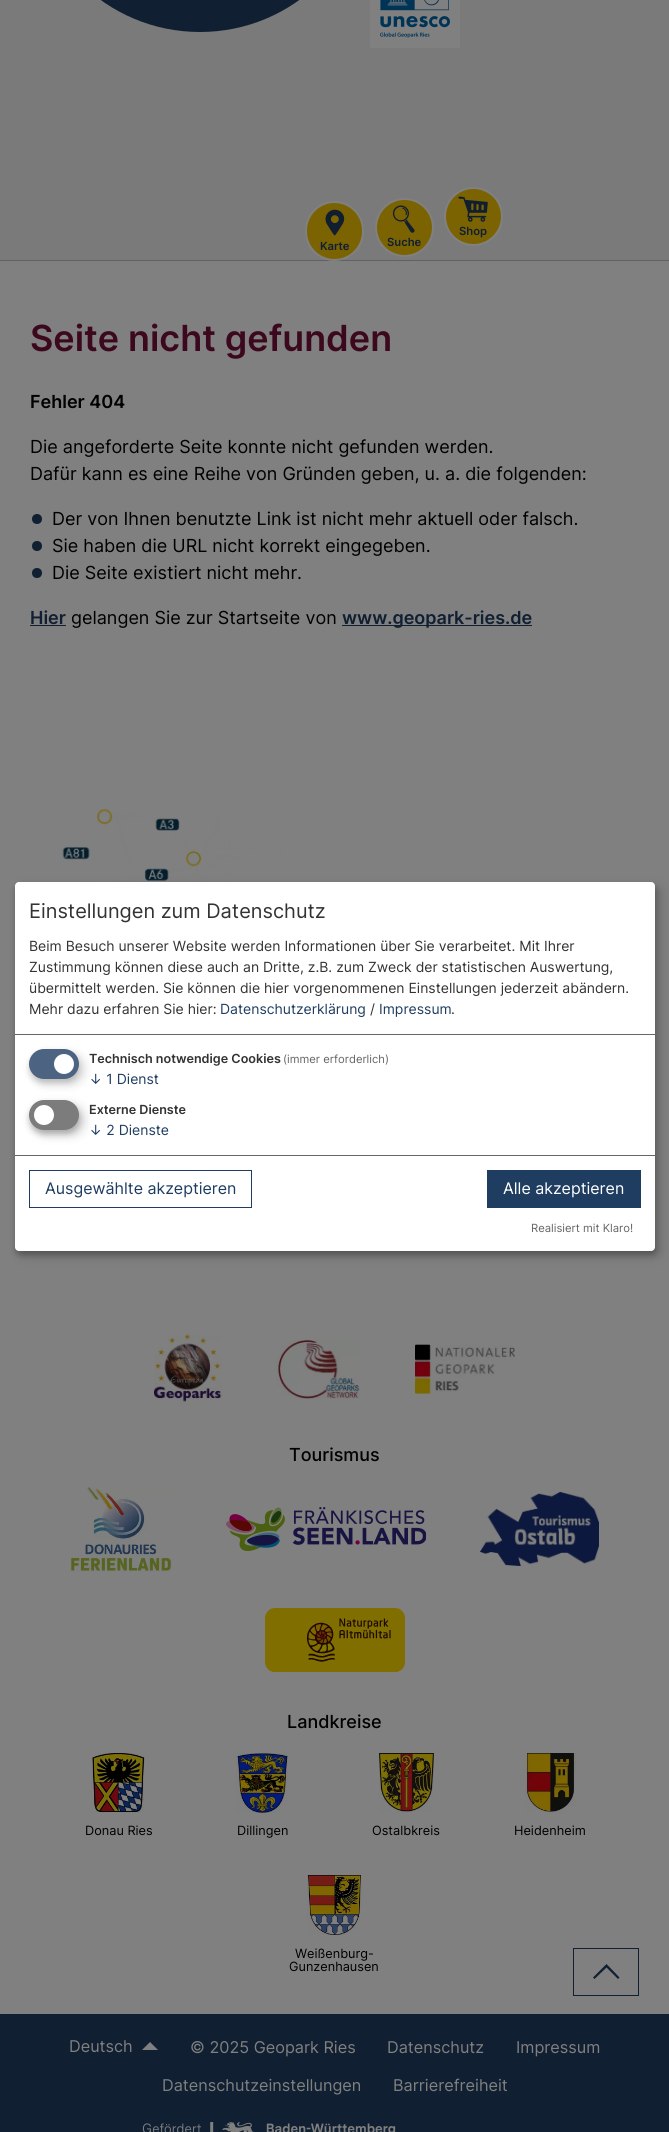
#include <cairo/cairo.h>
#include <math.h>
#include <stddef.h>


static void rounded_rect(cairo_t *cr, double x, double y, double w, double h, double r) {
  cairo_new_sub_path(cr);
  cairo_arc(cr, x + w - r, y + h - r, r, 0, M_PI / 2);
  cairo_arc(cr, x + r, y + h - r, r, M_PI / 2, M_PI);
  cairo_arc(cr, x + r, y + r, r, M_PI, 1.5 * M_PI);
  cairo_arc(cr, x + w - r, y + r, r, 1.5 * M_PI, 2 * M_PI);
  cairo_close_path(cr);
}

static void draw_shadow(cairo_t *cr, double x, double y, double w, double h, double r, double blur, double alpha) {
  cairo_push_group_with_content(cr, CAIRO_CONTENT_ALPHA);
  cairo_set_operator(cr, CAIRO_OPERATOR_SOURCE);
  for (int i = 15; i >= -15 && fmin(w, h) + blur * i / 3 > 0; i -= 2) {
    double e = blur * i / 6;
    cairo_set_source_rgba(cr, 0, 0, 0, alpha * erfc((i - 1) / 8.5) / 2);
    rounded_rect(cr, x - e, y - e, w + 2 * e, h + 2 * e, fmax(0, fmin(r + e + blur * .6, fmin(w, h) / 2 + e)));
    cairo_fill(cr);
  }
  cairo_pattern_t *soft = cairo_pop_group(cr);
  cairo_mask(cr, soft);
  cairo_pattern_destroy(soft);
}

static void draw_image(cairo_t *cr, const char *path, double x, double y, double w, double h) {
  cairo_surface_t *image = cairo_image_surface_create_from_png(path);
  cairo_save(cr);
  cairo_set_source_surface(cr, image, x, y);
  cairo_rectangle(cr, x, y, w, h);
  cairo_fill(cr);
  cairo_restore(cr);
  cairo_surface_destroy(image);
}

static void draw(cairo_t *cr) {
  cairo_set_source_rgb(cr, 128 / 255.0, 128 / 255.0, 128 / 255.0);
  cairo_paint(cr);
  cairo_set_source_rgb(cr, 122 / 255.0, 122 / 255.0, 122 / 255.0);
  cairo_rectangle(cr, -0.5, -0.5, 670, 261);
  cairo_fill_preserve(cr);
  cairo_set_source_rgb(cr, 97 / 255.0, 97 / 255.0, 97 / 255.0);
  cairo_set_line_width(cr, 1);
  cairo_stroke(cr);
  cairo_set_source_rgb(cr, 16 / 255.0, 31 / 255.0, 49 / 255.0);
  rounded_rect(cr, 30, -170, 340, 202, 170);
  cairo_fill(cr);
  cairo_set_source_rgb(cr, 128 / 255.0, 128 / 255.0, 128 / 255.0);
  cairo_rectangle(cr, 370, 0, 90, 48);
  cairo_fill(cr);
  draw_image(cr, "images/1.png", 380, 0, 70, 38);
  cairo_set_source_rgb(cr, 124 / 255.0, 99 / 255.0, 2 / 255.0);
  cairo_arc(cr, 473.5, 216.5, 28.5, 0, 2 * M_PI);
  cairo_fill_preserve(cr);
  cairo_set_source_rgb(cr, 128 / 255.0, 128 / 255.0, 128 / 255.0);
  cairo_set_line_width(cr, 2);
  cairo_stroke(cr);
  draw_image(cr, "images/2.png", 458, 196, 30, 26);
  cairo_set_source_rgb(cr, 124 / 255.0, 99 / 255.0, 2 / 255.0);
  rounded_rect(cr, 306, 202, 57, 58, 28.5);
  cairo_fill_preserve(cr);
  cairo_set_source_rgb(cr, 128 / 255.0, 128 / 255.0, 128 / 255.0);
  cairo_stroke(cr);
  draw_image(cr, "images/3.png", 325, 209, 20, 27);
  cairo_set_source_rgb(cr, 124 / 255.0, 99 / 255.0, 2 / 255.0);
  cairo_arc(cr, 404.5, 227.5, 28.5, 0, 2 * M_PI);
  cairo_fill_preserve(cr);
  cairo_set_source_rgb(cr, 128 / 255.0, 128 / 255.0, 128 / 255.0);
  cairo_stroke(cr);
  draw_image(cr, "images/4.png", 392, 205, 23, 28);
  cairo_set_source_rgb(cr, 16 / 255.0, 31 / 255.0, 49 / 255.0);
  cairo_arc(cr, 37, 519, 5, 0, 2 * M_PI);
  cairo_fill(cr);
  cairo_arc(cr, 37, 546, 5, 0, 2 * M_PI);
  cairo_fill(cr);
  cairo_arc(cr, 37, 573, 5, 0, 2 * M_PI);
  cairo_fill(cr);
  cairo_rectangle(cr, 30, 625, 36, 1);
  cairo_fill(cr);
  cairo_rectangle(cr, 342, 625, 190, 1);
  cairo_fill(cr);
  draw_image(cr, "images/5.png", 41, 805, 242, 77);
  cairo_set_source_rgb(cr, 0, 0, 0);
  draw_shadow(cr, 20, 887, 640, 369, 4, 5, 0.19);
  draw_shadow(cr, 15, 886, 640, 369, 4, 3, 0.2);
  cairo_set_source_rgb(cr, 1, 1, 1);
  rounded_rect(cr, 15, 882, 640, 369, 4);
  cairo_fill(cr);
  cairo_set_source_rgb(cr, 102 / 255.0, 102 / 255.0, 102 / 255.0);
  cairo_rectangle(cr, 15, 1034, 640, 1);
  cairo_fill(cr);
  cairo_set_source_rgb(cr, 0, 0, 0);
  draw_shadow(cr, 34, 1054, 50, 30, 15, 5, 0.15);
  cairo_set_source_rgb(cr, 51 / 255.0, 51 / 255.0, 51 / 255.0);
  draw_shadow(cr, 29, 1053, 50, 30, 15, 3, 0.2);
  cairo_set_source_rgb(cr, 76 / 255.0, 100 / 255.0, 129 / 255.0);
  rounded_rect(cr, 29, 1049, 50, 30, 15);
  cairo_fill(cr);
  cairo_set_source_rgb(cr, 1, 1, 1);
  cairo_arc(cr, 64, 1064, 10, 0, 2 * M_PI);
  cairo_fill(cr);
  cairo_set_source_rgb(cr, 0, 0, 0);
  draw_shadow(cr, 34, 1105, 50, 30, 15, 5, 0.19);
  draw_shadow(cr, 29, 1104, 50, 30, 15, 3, 0.2);
  cairo_set_source_rgb(cr, 124 / 255.0, 124 / 255.0, 124 / 255.0);
  rounded_rect(cr, 29, 1100, 50, 30, 15);
  cairo_fill(cr);
  cairo_set_source_rgb(cr, 1, 1, 1);
  cairo_arc(cr, 44, 1115, 10, 0, 2 * M_PI);
  cairo_fill(cr);
  cairo_set_source_rgb(cr, 102 / 255.0, 102 / 255.0, 102 / 255.0);
  cairo_rectangle(cr, 15, 1155, 640, 1);
  cairo_fill(cr);
  cairo_rectangle(cr, 29.5, 1170.5, 222, 37);
  cairo_set_source_rgb(cr, 31 / 255.0, 61 / 255.0, 97 / 255.0);
  cairo_set_line_width(cr, 1);
  cairo_stroke(cr);
  cairo_rectangle(cr, 487, 1170, 154, 38);
  cairo_fill(cr);
  draw_image(cr, "images/6.png", 154, 1334, 68, 70);
  draw_image(cr, "images/7.png", 276, 1339, 84, 60);
  draw_image(cr, "images/8.png", 415, 1344, 100, 50);
  draw_image(cr, "images/9.png", 70, 1486, 102, 86);
  draw_image(cr, "images/10.png", 226, 1507, 200, 44);
  draw_image(cr, "images/11.png", 480, 1492, 119, 74);
  draw_image(cr, "images/12.png", 265, 1608, 140, 64);
  draw_image(cr, "images/13.png", 91, 1753, 54, 60);
  draw_image(cr, "images/14.png", 235, 1753, 53, 60);
  draw_image(cr, "images/15.png", 379, 1753, 55, 60);
  draw_image(cr, "images/16.png", 525, 1753, 51, 60);
  draw_image(cr, "images/17.png", 307, 1875, 55, 60);
  cairo_rectangle(cr, 573.5, 1948.5, 65, 47);
  cairo_set_source_rgb(cr, 16 / 255.0, 31 / 255.0, 49 / 255.0);
  cairo_stroke(cr);
  cairo_new_path(cr);
  cairo_move_to(cr, 606.5, 1964);
  cairo_line_to(cr, 619.5, 1977.5);
  cairo_line_to(cr, 618, 1979);
  cairo_line_to(cr, 606.5, 1967.5);
  cairo_line_to(cr, 594.5, 1979);
  cairo_line_to(cr, 593, 1977.5);
  cairo_close_path(cr);
  cairo_fill(cr);
  cairo_rectangle(cr, 0, 2014, 669, 118);
  cairo_fill(cr);
  cairo_set_source_rgb(cr, 128 / 255.0, 128 / 255.0, 128 / 255.0);
  cairo_new_path(cr);
  cairo_move_to(cr, 158, 2050);
  cairo_line_to(cr, 142, 2050);
  cairo_line_to(cr, 150, 2042);
  cairo_close_path(cr);
  cairo_fill(cr);
  draw_image(cr, "images/18.png", 142, 2122, 254, 10);
  cairo_select_font_face(cr, "Inter SemiBold", CAIRO_FONT_SLANT_NORMAL, CAIRO_FONT_WEIGHT_NORMAL);
  cairo_set_font_size(cr, 11.25);
  cairo_set_source_rgb(cr, 16 / 255.0, 31 / 255.0, 49 / 255.0);
  cairo_move_to(cr, 459, 235);
  cairo_show_text(cr, "Shop");
  cairo_move_to(cr, 320, 250);
  cairo_show_text(cr, "Karte");
  cairo_move_to(cr, 387, 246);
  cairo_show_text(cr, "Suche");
  cairo_set_font_size(cr, 36);
  cairo_set_source_rgb(cr, 60 / 255.0, 8 / 255.0, 30 / 255.0);
  cairo_move_to(cr, 30, 351);
  cairo_show_text(cr, "Seite nicht gefunden");
  cairo_set_font_size(cr, 18);
  cairo_set_source_rgb(cr, 0, 0, 0);
  cairo_move_to(cr, 30, 408);
  cairo_show_text(cr, "Fehler 404");
  cairo_select_font_face(cr, "Inter", CAIRO_FONT_SLANT_NORMAL, CAIRO_FONT_WEIGHT_NORMAL);
  cairo_move_to(cr, 30, 453);
  cairo_show_text(cr, "Die angeforderte Seite konnte nicht gefunden werden.");
  cairo_move_to(cr, 30, 480);
  cairo_show_text(cr, "Dafür kann es eine Reihe von Gründen geben, u. a. die folgenden:");
  cairo_move_to(cr, 52, 525);
  cairo_show_text(cr, "Der von Ihnen benutzte Link ist nicht mehr aktuell oder falsch.");
  cairo_move_to(cr, 52, 552);
  cairo_show_text(cr, "Sie haben die URL nicht korrekt eingegeben.");
  cairo_move_to(cr, 52, 579);
  cairo_show_text(cr, "Die Seite existiert nicht mehr.");
  cairo_select_font_face(cr, "Inter SemiBold", CAIRO_FONT_SLANT_NORMAL, CAIRO_FONT_WEIGHT_NORMAL);
  cairo_set_source_rgb(cr, 16 / 255.0, 31 / 255.0, 49 / 255.0);
  cairo_move_to(cr, 30, 624);
  cairo_show_text(cr, "Hier");
  cairo_select_font_face(cr, "Inter", CAIRO_FONT_SLANT_NORMAL, CAIRO_FONT_WEIGHT_NORMAL);
  cairo_set_source_rgb(cr, 0, 0, 0);
  cairo_move_to(cr, 71, 624);
  cairo_show_text(cr, "gelangen Sie zur Startseite von");
  cairo_select_font_face(cr, "Inter SemiBold", CAIRO_FONT_SLANT_NORMAL, CAIRO_FONT_WEIGHT_NORMAL);
  cairo_set_source_rgb(cr, 16 / 255.0, 31 / 255.0, 49 / 255.0);
  cairo_move_to(cr, 342, 624);
  cairo_show_text(cr, "www.geopark-ries.de");
  cairo_select_font_face(cr, "Inter", CAIRO_FONT_SLANT_NORMAL, CAIRO_FONT_WEIGHT_NORMAL);
  cairo_set_font_size(cr, 20);
  cairo_set_source_rgb(cr, 51 / 255.0, 51 / 255.0, 51 / 255.0);
  cairo_move_to(cr, 29, 918);
  cairo_show_text(cr, "Einstellungen zum Datenschutz");
  cairo_set_font_size(cr, 14);
  cairo_move_to(cr, 29, 951);
  cairo_show_text(cr, "Beim Besuch unserer Website werden Informationen über Sie verarbeitet. Mit Ihrer");
  cairo_move_to(cr, 29, 972);
  cairo_show_text(cr, "Zustimmung können diese auch an Dritte, z.B. zum Zweck der statistischen Auswertung,");
  cairo_move_to(cr, 29, 993);
  cairo_show_text(cr, "übermittelt werden. Sie können die hier vorgenommenen Einstellungen jederzeit abändern.");
  cairo_move_to(cr, 29, 1014);
  cairo_show_text(cr, "Mehr dazu erfahren Sie hier:");
  cairo_set_source_rgb(cr, 31 / 255.0, 61 / 255.0, 97 / 255.0);
  cairo_move_to(cr, 220, 1014);
  cairo_show_text(cr, "Datenschutzerklärung");
  cairo_set_source_rgb(cr, 51 / 255.0, 51 / 255.0, 51 / 255.0);
  cairo_move_to(cr, 370, 1014);
  cairo_show_text(cr, "/");
  cairo_set_source_rgb(cr, 31 / 255.0, 61 / 255.0, 97 / 255.0);
  cairo_move_to(cr, 379, 1014);
  cairo_show_text(cr, "Impressum");
  cairo_set_source_rgb(cr, 51 / 255.0, 51 / 255.0, 51 / 255.0);
  cairo_move_to(cr, 451, 1014);
  cairo_show_text(cr, ".");
  cairo_select_font_face(cr, "Inter SemiBold", CAIRO_FONT_SLANT_NORMAL, CAIRO_FONT_WEIGHT_NORMAL);
  cairo_set_font_size(cr, 12.6);
  cairo_move_to(cr, 89, 1063);
  cairo_show_text(cr, "Technisch notwendige Cookies");
  cairo_select_font_face(cr, "Inter", CAIRO_FONT_SLANT_NORMAL, CAIRO_FONT_WEIGHT_NORMAL);
  cairo_set_font_size(cr, 11.25);
  cairo_set_source_rgb(cr, 102 / 255.0, 102 / 255.0, 102 / 255.0);
  cairo_move_to(cr, 283, 1063);
  cairo_show_text(cr, "(immer erforderlich)");
  cairo_set_font_size(cr, 14);
  cairo_set_source_rgb(cr, 31 / 255.0, 61 / 255.0, 97 / 255.0);
  cairo_move_to(cr, 89, 1084);
  cairo_show_text(cr, "↓ 1 Dienst");
  cairo_select_font_face(cr, "Inter SemiBold", CAIRO_FONT_SLANT_NORMAL, CAIRO_FONT_WEIGHT_NORMAL);
  cairo_set_font_size(cr, 12.6);
  cairo_set_source_rgb(cr, 51 / 255.0, 51 / 255.0, 51 / 255.0);
  cairo_move_to(cr, 89, 1114);
  cairo_show_text(cr, "Externe Dienste");
  cairo_select_font_face(cr, "Inter", CAIRO_FONT_SLANT_NORMAL, CAIRO_FONT_WEIGHT_NORMAL);
  cairo_set_font_size(cr, 14);
  cairo_set_source_rgb(cr, 31 / 255.0, 61 / 255.0, 97 / 255.0);
  cairo_move_to(cr, 89, 1135);
  cairo_show_text(cr, "↓ 2 Dienste");
  cairo_set_font_size(cr, 16);
  cairo_move_to(cr, 45, 1194);
  cairo_show_text(cr, "Ausgewählte akzeptieren");
  cairo_set_source_rgb(cr, 1, 1, 1);
  cairo_move_to(cr, 503, 1194);
  cairo_show_text(cr, "Alle akzeptieren");
  cairo_set_font_size(cr, 11.25);
  cairo_set_source_rgb(cr, 102 / 255.0, 102 / 255.0, 102 / 255.0);
  cairo_move_to(cr, 531, 1232);
  cairo_show_text(cr, "Realisiert mit Klaro!");
  cairo_select_font_face(cr, "Inter Medium", CAIRO_FONT_SLANT_NORMAL, CAIRO_FONT_WEIGHT_NORMAL);
  cairo_set_font_size(cr, 18);
  cairo_set_source_rgb(cr, 0, 0, 0);
  cairo_move_to(cr, 289, 1461);
  cairo_show_text(cr, "Tourismus");
  cairo_move_to(cr, 287, 1728);
  cairo_show_text(cr, "Landkreise");
  cairo_select_font_face(cr, "Inter", CAIRO_FONT_SLANT_NORMAL, CAIRO_FONT_WEIGHT_NORMAL);
  cairo_set_font_size(cr, 12.75);
  cairo_move_to(cr, 85, 1835);
  cairo_show_text(cr, "Donau Ries");
  cairo_move_to(cr, 237, 1835);
  cairo_show_text(cr, "Dillingen");
  cairo_move_to(cr, 372, 1835);
  cairo_show_text(cr, "Ostalbkreis");
  cairo_move_to(cr, 514, 1835);
  cairo_show_text(cr, "Heidenheim");
  cairo_move_to(cr, 295, 1958);
  cairo_show_text(cr, "Weißenburg-");
  cairo_move_to(cr, 289, 1971);
  cairo_show_text(cr, "Gunzenhausen");
  cairo_set_font_size(cr, 16.25);
  cairo_set_source_rgb(cr, 128 / 255.0, 128 / 255.0, 128 / 255.0);
  cairo_move_to(cr, 69, 2052);
  cairo_show_text(cr, "Deutsch");
  cairo_move_to(cr, 190, 2053);
  cairo_show_text(cr, "© 2025 Geopark Ries");
  cairo_move_to(cr, 387, 2053);
  cairo_show_text(cr, "Datenschutz");
  cairo_move_to(cr, 516, 2053);
  cairo_show_text(cr, "Impressum");
  cairo_move_to(cr, 162, 2091);
  cairo_show_text(cr, "Datenschutzeinstellungen");
  cairo_move_to(cr, 393, 2091);
  cairo_show_text(cr, "Barrierefreiheit");
}

int main(void) {
  cairo_surface_t *surface = cairo_image_surface_create(CAIRO_FORMAT_RGB24, 669, 2132);
  cairo_t *cr = cairo_create(surface);
  cairo_font_options_t *options = cairo_font_options_create();
  cairo_font_options_set_hint_metrics(options, CAIRO_HINT_METRICS_OFF);
  cairo_font_options_set_hint_style(options, CAIRO_HINT_STYLE_NONE);
  cairo_set_font_options(cr, options);
  cairo_set_miter_limit(cr, 4);
  draw(cr);
  cairo_surface_write_to_png(surface, "out.png");
  cairo_font_options_destroy(options);
  cairo_destroy(cr);
  cairo_surface_destroy(surface);
  return 0;
}
